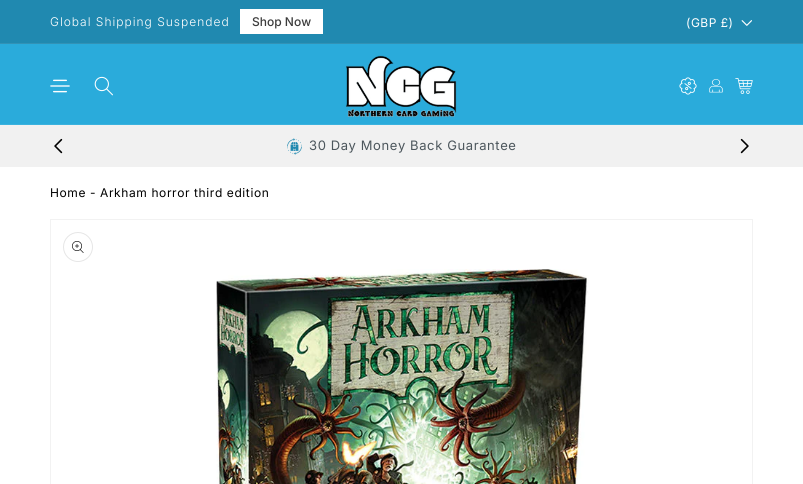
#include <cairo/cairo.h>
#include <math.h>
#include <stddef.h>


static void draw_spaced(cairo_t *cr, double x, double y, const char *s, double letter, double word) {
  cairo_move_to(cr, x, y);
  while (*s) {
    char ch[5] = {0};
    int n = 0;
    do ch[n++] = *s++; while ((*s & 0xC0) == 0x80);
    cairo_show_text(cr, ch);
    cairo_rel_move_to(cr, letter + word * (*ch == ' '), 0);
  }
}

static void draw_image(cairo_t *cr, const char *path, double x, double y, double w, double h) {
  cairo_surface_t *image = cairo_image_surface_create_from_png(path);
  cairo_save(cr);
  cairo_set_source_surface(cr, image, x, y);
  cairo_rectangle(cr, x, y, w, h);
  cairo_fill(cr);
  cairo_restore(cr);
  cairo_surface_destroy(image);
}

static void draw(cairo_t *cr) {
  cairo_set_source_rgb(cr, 1, 1, 1);
  cairo_paint(cr);
  cairo_set_source_rgb(cr, 32 / 255.0, 137 / 255.0, 176 / 255.0);
  cairo_rectangle(cr, 0, 0, 803, 43);
  cairo_fill(cr);
  cairo_set_source_rgb(cr, 50 / 255.0, 146 / 255.0, 182 / 255.0);
  cairo_rectangle(cr, 0, 43, 803, 1);
  cairo_fill(cr);
  cairo_set_source_rgb(cr, 1, 1, 1);
  cairo_rectangle(cr, 240, 9, 83, 25);
  cairo_fill(cr);
  draw_image(cr, "images/1.png", 741, 20, 11, 6);
  cairo_set_source_rgb(cr, 42 / 255.0, 171 / 255.0, 219 / 255.0);
  cairo_rectangle(cr, 0, 44, 803, 80);
  cairo_fill(cr);
  cairo_set_source_rgb(cr, 59 / 255.0, 178 / 255.0, 222 / 255.0);
  cairo_rectangle(cr, 0, 124, 803, 1);
  cairo_fill(cr);
  draw_image(cr, "images/2.png", 50, 79, 20, 14);
  draw_image(cr, "images/3.png", 94, 76, 19, 20);
  draw_image(cr, "images/4.png", 346, 55, 111, 62);
  draw_image(cr, "images/5.png", 679, 77, 18, 18);
  draw_image(cr, "images/6.png", 709, 79, 14, 14);
  draw_image(cr, "images/7.png", 735, 78, 18, 16);
  cairo_set_source_rgb(cr, 241 / 255.0, 241 / 255.0, 241 / 255.0);
  cairo_rectangle(cr, 0, 125, 803, 42);
  cairo_fill(cr);
  draw_image(cr, "images/8.png", 54, 138, 9, 16);
  draw_image(cr, "images/9.png", 287, 138, 15, 17);
  draw_image(cr, "images/10.png", 740, 138, 9, 16);
  cairo_rectangle(cr, 50.5, 219.5, 702, 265);
  cairo_set_source_rgb(cr, 242 / 255.0, 242 / 255.0, 242 / 255.0);
  cairo_set_line_width(cr, 1);
  cairo_stroke(cr);
  draw_image(cr, "images/11.png", 216, 269, 373, 215);
  cairo_arc(cr, 78, 247, 14.5, 0, 2 * M_PI);
  cairo_set_source_rgb(cr, 230 / 255.0, 230 / 255.0, 230 / 255.0);
  cairo_stroke(cr);
  draw_image(cr, "images/12.png", 72, 241, 12, 12);
  cairo_select_font_face(cr, "Inter Light", CAIRO_FONT_SLANT_NORMAL, CAIRO_FONT_WEIGHT_NORMAL);
  cairo_set_font_size(cr, 12);
  cairo_set_source_rgb(cr, 1, 1, 1);
  draw_spaced(cr, 50, 26, "Global Shipping Suspended", 1, 0);
  cairo_select_font_face(cr, "Inter Medium", CAIRO_FONT_SLANT_NORMAL, CAIRO_FONT_WEIGHT_NORMAL);
  cairo_set_source_rgb(cr, 60 / 255.0, 60 / 255.0, 60 / 255.0);
  cairo_move_to(cr, 252, 26);
  cairo_show_text(cr, "Shop Now");
  cairo_select_font_face(cr, "Inter", CAIRO_FONT_SLANT_NORMAL, CAIRO_FONT_WEIGHT_NORMAL);
  cairo_set_source_rgb(cr, 1, 1, 1);
  draw_spaced(cr, 686, 27, "(GBP £)", 0.5, 0);
  cairo_set_font_size(cr, 13);
  cairo_set_source_rgb(cr, 76 / 255.0, 86 / 255.0, 92 / 255.0);
  draw_spaced(cr, 309, 150, "30 Day Money Back Guarantee", 0.6, 0);
  cairo_set_font_size(cr, 12);
  cairo_set_source_rgb(cr, 0, 0, 0);
  draw_spaced(cr, 50, 197, "Home - Arkham horror third edition", 0.6, 0);
}

int main(void) {
  cairo_surface_t *surface = cairo_image_surface_create(CAIRO_FORMAT_RGB24, 803, 484);
  cairo_t *cr = cairo_create(surface);
  cairo_font_options_t *options = cairo_font_options_create();
  cairo_font_options_set_hint_metrics(options, CAIRO_HINT_METRICS_OFF);
  cairo_font_options_set_hint_style(options, CAIRO_HINT_STYLE_NONE);
  cairo_set_font_options(cr, options);
  cairo_set_miter_limit(cr, 4);
  draw(cr);
  cairo_surface_write_to_png(surface, "out.png");
  cairo_font_options_destroy(options);
  cairo_destroy(cr);
  cairo_surface_destroy(surface);
  return 0;
}
